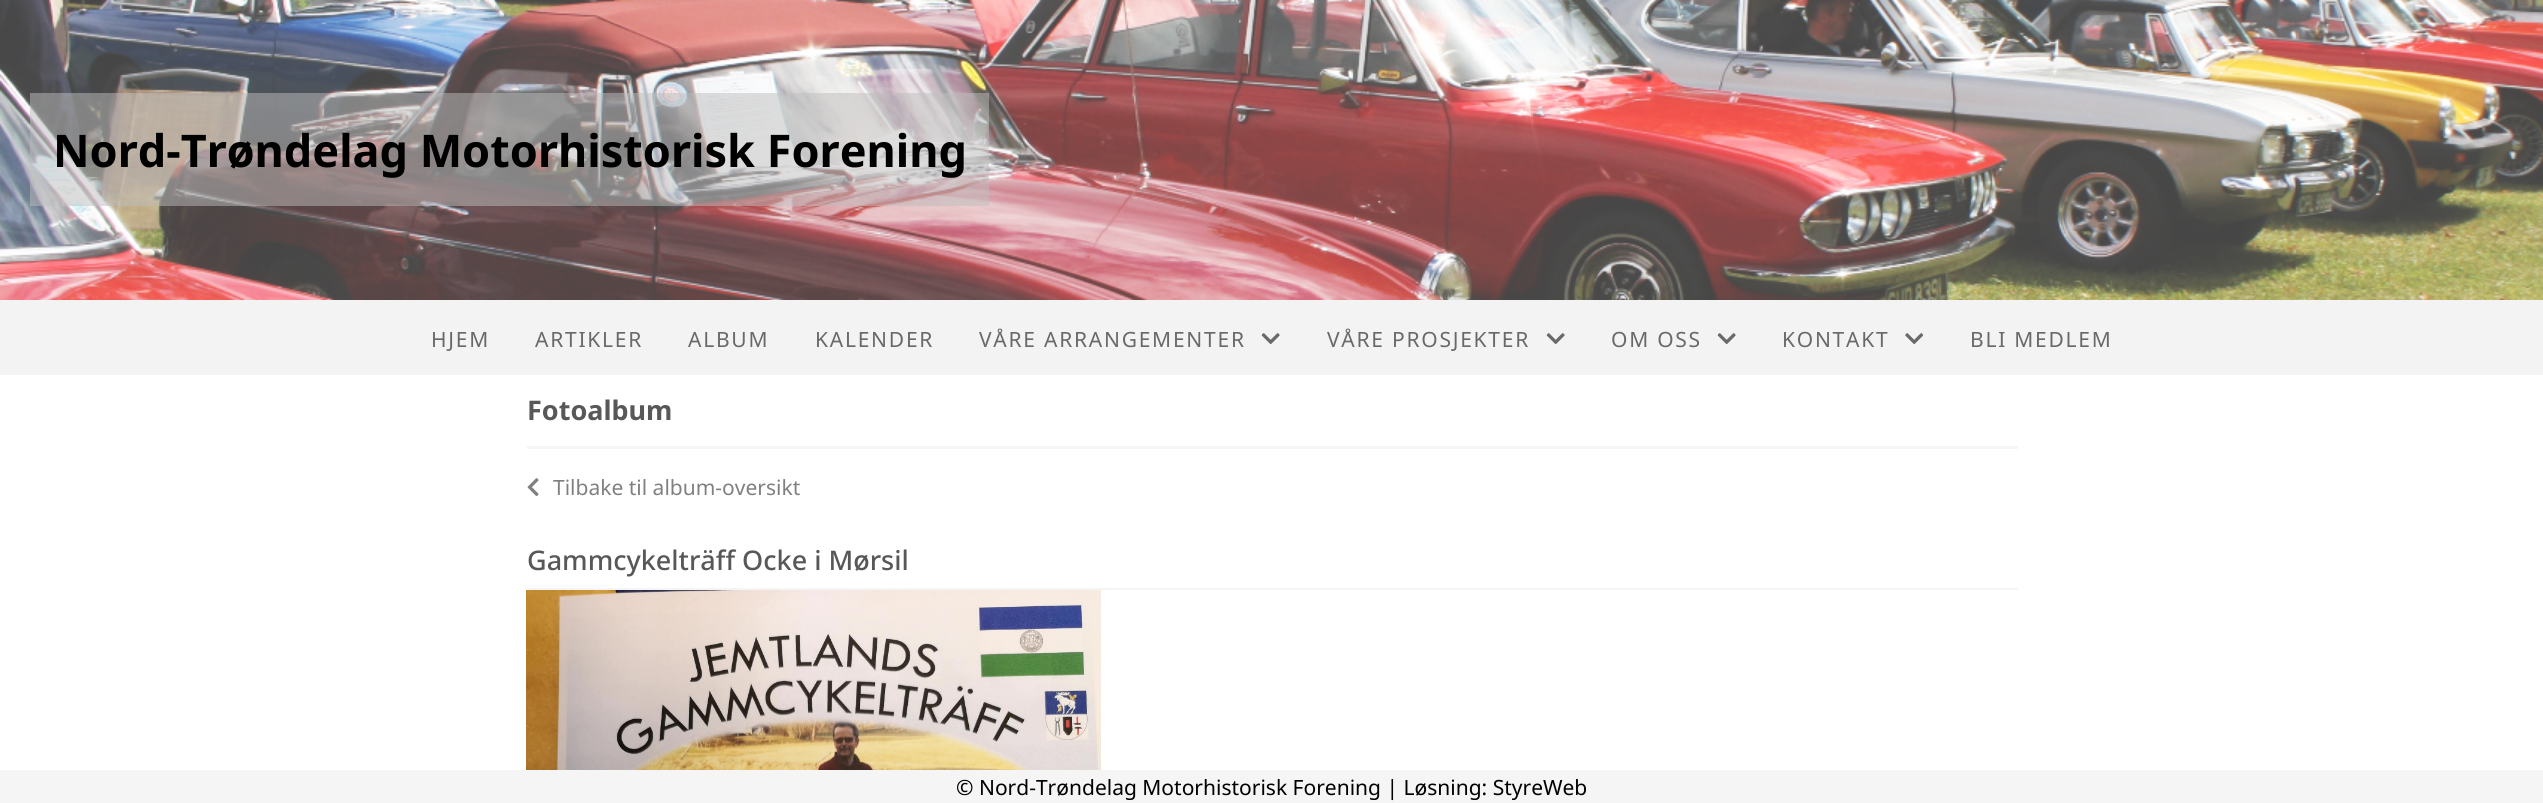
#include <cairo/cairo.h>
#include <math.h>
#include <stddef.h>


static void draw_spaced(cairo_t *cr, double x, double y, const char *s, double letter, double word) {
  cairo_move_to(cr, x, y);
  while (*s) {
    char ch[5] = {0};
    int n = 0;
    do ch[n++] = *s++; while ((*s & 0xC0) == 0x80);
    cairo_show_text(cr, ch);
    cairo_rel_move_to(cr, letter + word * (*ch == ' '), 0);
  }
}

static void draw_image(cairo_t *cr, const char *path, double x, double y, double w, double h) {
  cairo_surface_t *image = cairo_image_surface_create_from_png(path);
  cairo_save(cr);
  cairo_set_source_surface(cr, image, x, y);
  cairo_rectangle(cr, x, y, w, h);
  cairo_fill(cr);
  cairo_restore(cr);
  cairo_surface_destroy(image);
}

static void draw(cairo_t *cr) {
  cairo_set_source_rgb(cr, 1, 1, 1);
  cairo_paint(cr);
  draw_image(cr, "images/1.png", 0, 0, 2543, 300);
  cairo_set_source_rgba(cr, 191 / 255.0, 191 / 255.0, 191 / 255.0, 0.5);
  cairo_rectangle(cr, 30, 93, 959, 113);
  cairo_fill(cr);
  cairo_set_source_rgb(cr, 243 / 255.0, 243 / 255.0, 243 / 255.0);
  cairo_rectangle(cr, 0, 300, 2543, 75);
  cairo_fill(cr);
  draw_image(cr, "images/2.png", 1261, 333, 19, 11);
  draw_image(cr, "images/2.png", 1546, 333, 19, 11);
  draw_image(cr, "images/2.png", 1717, 333, 19, 11);
  draw_image(cr, "images/3.png", 1905, 333, 19, 11);
  cairo_set_source_rgb(cr, 245 / 255.0, 245 / 255.0, 245 / 255.0);
  cairo_rectangle(cr, 527, 446, 1491, 3);
  cairo_fill(cr);
  draw_image(cr, "images/4.png", 527, 478, 12, 18);
  cairo_rectangle(cr, 527, 588, 1491, 2);
  cairo_fill(cr);
  draw_image(cr, "images/5.png", 526, 590, 575, 180);
  cairo_rectangle(cr, 0, 770, 2543, 33);
  cairo_fill(cr);
  cairo_select_font_face(cr, "Noto Sans", CAIRO_FONT_SLANT_NORMAL, CAIRO_FONT_WEIGHT_BOLD);
  cairo_set_font_size(cr, 45);
  cairo_set_source_rgb(cr, 0, 0, 0);
  cairo_move_to(cr, 53, 167);
  cairo_show_text(cr, "Nord-Trøndelag Motorhistorisk Forening");
  cairo_select_font_face(cr, "Noto Sans", CAIRO_FONT_SLANT_NORMAL, CAIRO_FONT_WEIGHT_NORMAL);
  cairo_set_font_size(cr, 21);
  cairo_set_source_rgb(cr, 105 / 255.0, 105 / 255.0, 105 / 255.0);
  draw_spaced(cr, 431, 347, "HJEM", 1.75, 0);
  draw_spaced(cr, 535, 347, "ARTIKLER", 1.75, 0);
  draw_spaced(cr, 688, 347, "ALBUM", 1.75, 0);
  draw_spaced(cr, 815, 347, "KALENDER", 1.75, 0);
  draw_spaced(cr, 979, 347, "VÅRE ARRANGEMENTER", 1.75, 0);
  draw_spaced(cr, 1327, 347, "VÅRE PROSJEKTER", 1.75, 0);
  draw_spaced(cr, 1611, 347, "OM OSS", 1.75, 0);
  draw_spaced(cr, 1782, 347, "KONTAKT", 1.75, 0);
  draw_spaced(cr, 1970, 347, "BLI MEDLEM", 1.75, 0);
  cairo_select_font_face(cr, "Noto Sans", CAIRO_FONT_SLANT_NORMAL, CAIRO_FONT_WEIGHT_BOLD);
  cairo_set_font_size(cr, 27);
  cairo_set_source_rgb(cr, 88 / 255.0, 88 / 255.0, 88 / 255.0);
  cairo_move_to(cr, 527, 420);
  cairo_show_text(cr, "Fotoalbum");
  cairo_select_font_face(cr, "Noto Sans", CAIRO_FONT_SLANT_NORMAL, CAIRO_FONT_WEIGHT_NORMAL);
  cairo_set_font_size(cr, 21);
  cairo_set_source_rgb(cr, 128 / 255.0, 128 / 255.0, 128 / 255.0);
  cairo_move_to(cr, 553, 495);
  cairo_show_text(cr, "Tilbake til album-oversikt");
  cairo_select_font_face(cr, "Noto Sans Medium", CAIRO_FONT_SLANT_NORMAL, CAIRO_FONT_WEIGHT_NORMAL);
  cairo_set_font_size(cr, 27);
  cairo_set_source_rgb(cr, 88 / 255.0, 88 / 255.0, 88 / 255.0);
  cairo_move_to(cr, 527, 570);
  cairo_show_text(cr, "Gammcykelträff Ocke i Mørsil");
  cairo_select_font_face(cr, "Noto Sans", CAIRO_FONT_SLANT_NORMAL, CAIRO_FONT_WEIGHT_NORMAL);
  cairo_set_font_size(cr, 21);
  cairo_set_source_rgb(cr, 0, 0, 0);
  cairo_move_to(cr, 956, 795);
  cairo_show_text(cr, "© Nord-Trøndelag Motorhistorisk Forening | Løsning: StyreWeb");
}

int main(void) {
  cairo_surface_t *surface = cairo_image_surface_create(CAIRO_FORMAT_RGB24, 2543, 803);
  cairo_t *cr = cairo_create(surface);
  cairo_font_options_t *options = cairo_font_options_create();
  cairo_font_options_set_hint_metrics(options, CAIRO_HINT_METRICS_OFF);
  cairo_font_options_set_hint_style(options, CAIRO_HINT_STYLE_NONE);
  cairo_set_font_options(cr, options);
  cairo_set_miter_limit(cr, 4);
  draw(cr);
  cairo_surface_write_to_png(surface, "out.png");
  cairo_font_options_destroy(options);
  cairo_destroy(cr);
  cairo_surface_destroy(surface);
  return 0;
}
